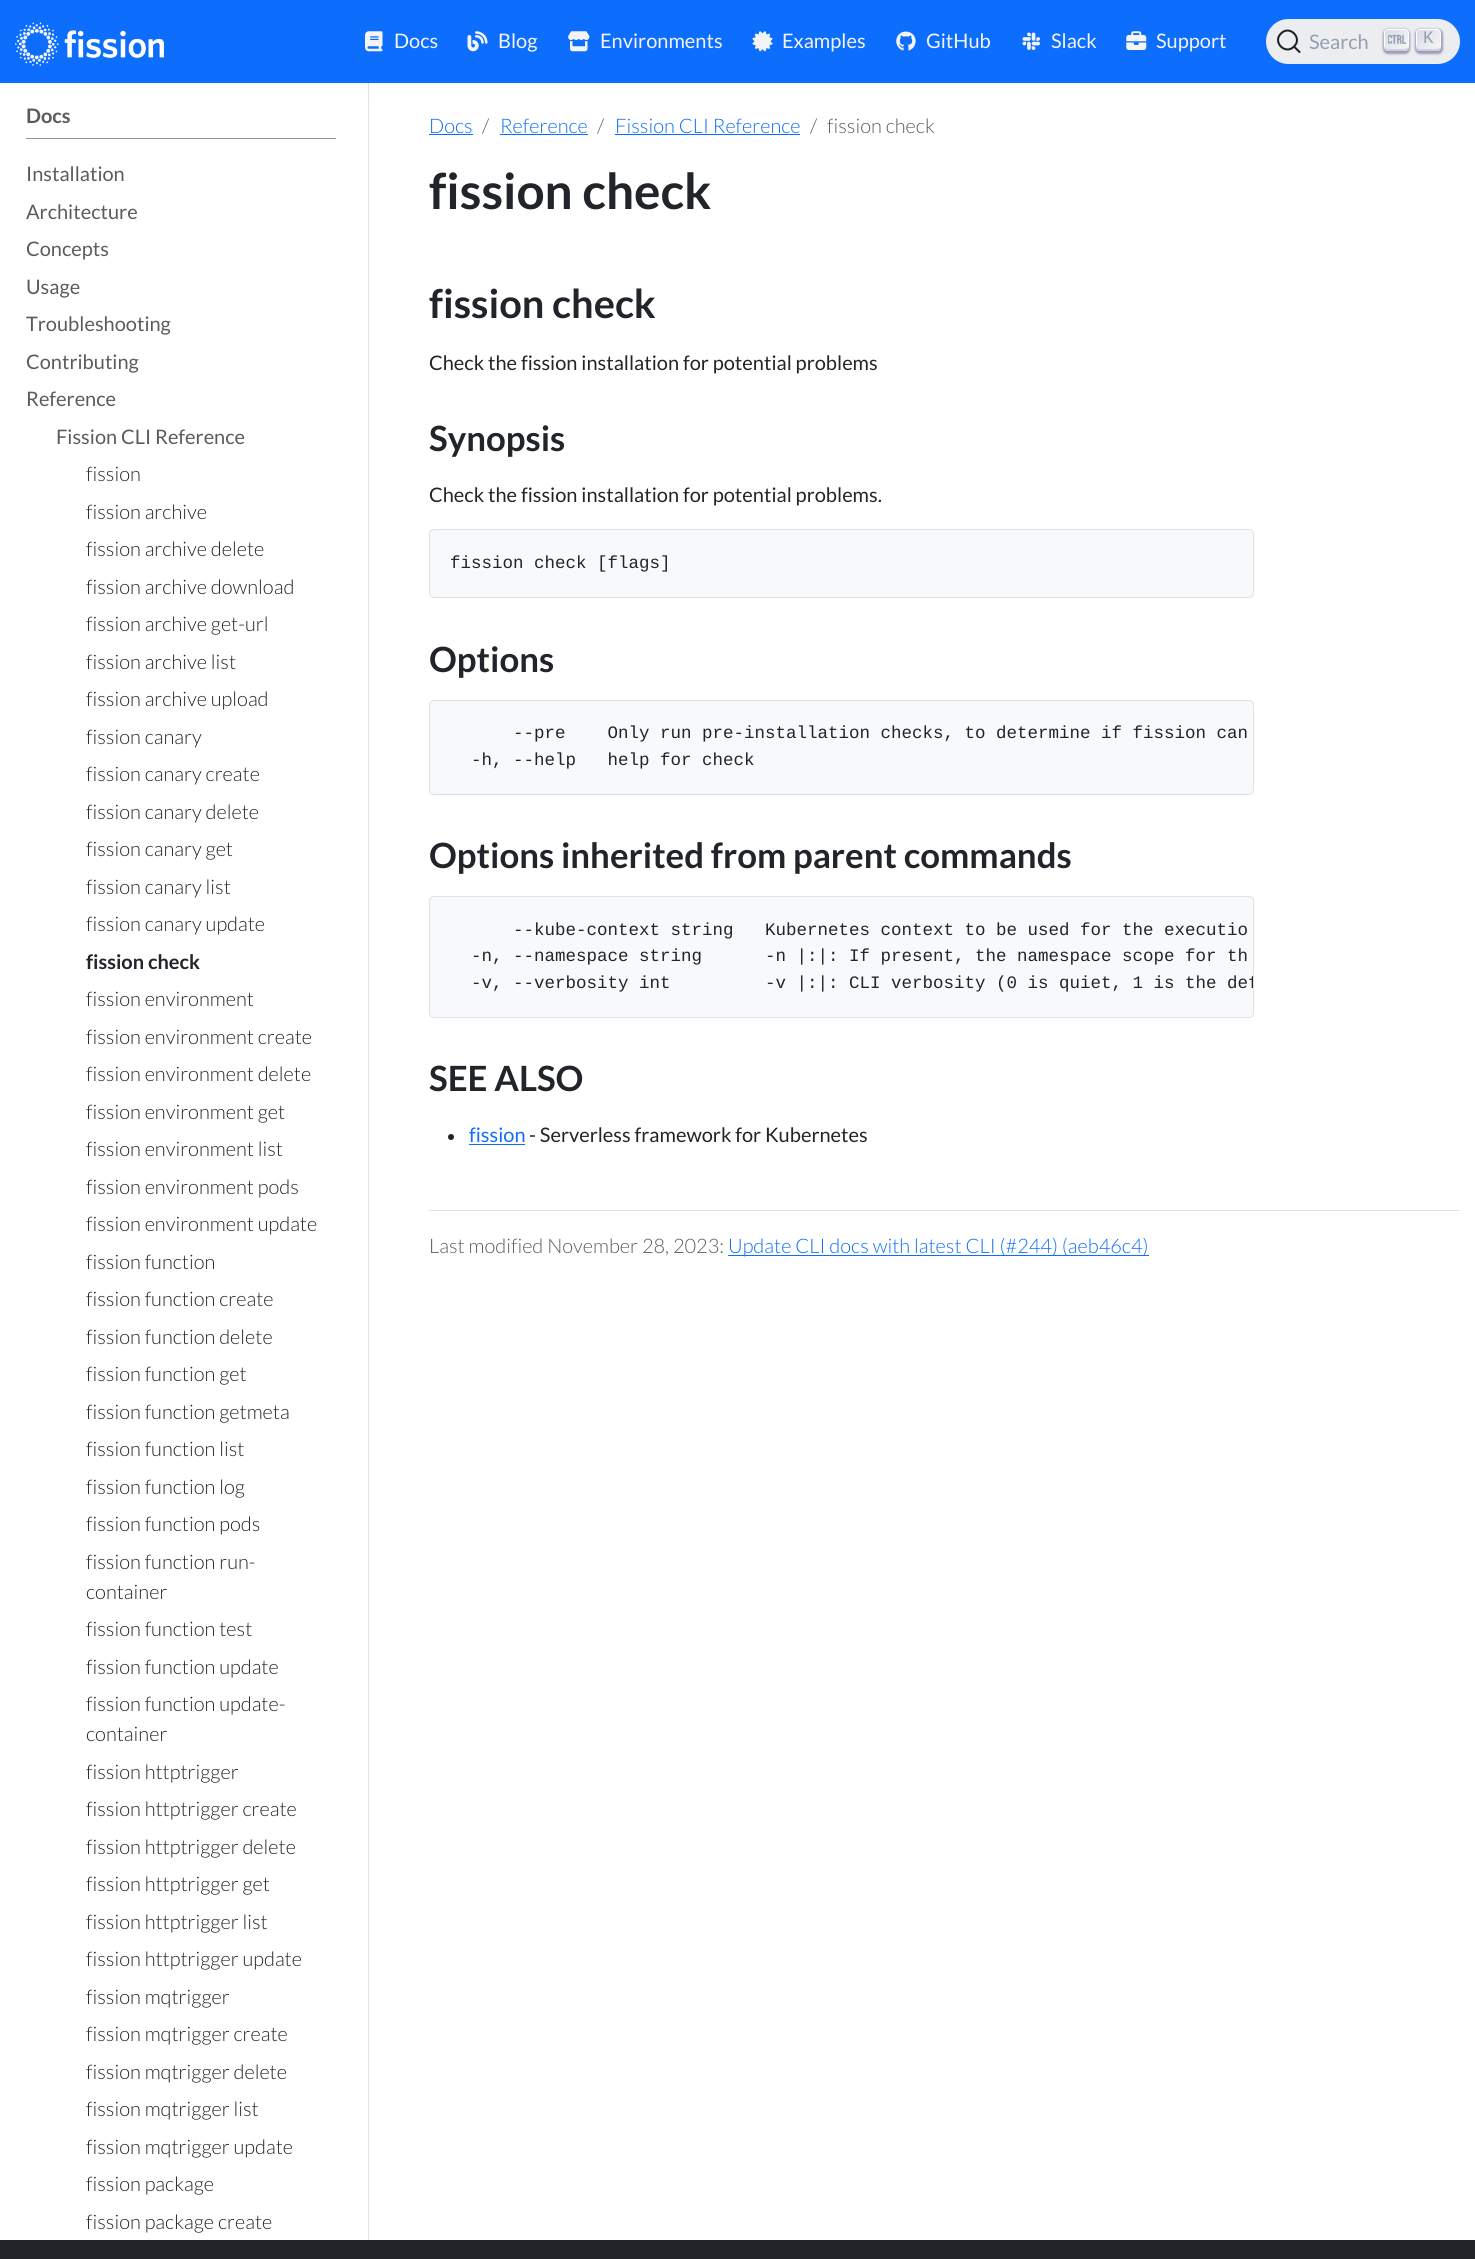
#include <cairo/cairo.h>
#include <math.h>
#include <stddef.h>


static void rounded_rect(cairo_t *cr, double x, double y, double w, double h, double r) {
  cairo_new_sub_path(cr);
  cairo_arc(cr, x + w - r, y + h - r, r, 0, M_PI / 2);
  cairo_arc(cr, x + r, y + h - r, r, M_PI / 2, M_PI);
  cairo_arc(cr, x + r, y + r, r, M_PI, 1.5 * M_PI);
  cairo_arc(cr, x + w - r, y + r, r, 1.5 * M_PI, 2 * M_PI);
  cairo_close_path(cr);
}

static void draw_shadow(cairo_t *cr, double x, double y, double w, double h, double r, double blur, double alpha) {
  cairo_push_group_with_content(cr, CAIRO_CONTENT_ALPHA);
  cairo_set_operator(cr, CAIRO_OPERATOR_SOURCE);
  for (int i = 15; i >= -15 && fmin(w, h) + blur * i / 3 > 0; i -= 2) {
    double e = blur * i / 6;
    cairo_set_source_rgba(cr, 0, 0, 0, alpha * erfc((i - 1) / 8.5) / 2);
    rounded_rect(cr, x - e, y - e, w + 2 * e, h + 2 * e, fmax(0, fmin(r + e + blur * .6, fmin(w, h) / 2 + e)));
    cairo_fill(cr);
  }
  cairo_pattern_t *soft = cairo_pop_group(cr);
  cairo_mask(cr, soft);
  cairo_pattern_destroy(soft);
}

static void draw_image(cairo_t *cr, const char *path, double x, double y, double w, double h) {
  cairo_surface_t *image = cairo_image_surface_create_from_png(path);
  cairo_save(cr);
  cairo_set_source_surface(cr, image, x, y);
  cairo_rectangle(cr, x, y, w, h);
  cairo_fill(cr);
  cairo_restore(cr);
  cairo_surface_destroy(image);
}

static void draw(cairo_t *cr) {
  cairo_pattern_t *gradient;
  cairo_set_source_rgb(cr, 1, 1, 1);
  cairo_paint(cr);
  cairo_set_source_rgb(cr, 13 / 255.0, 110 / 255.0, 253 / 255.0);
  cairo_rectangle(cr, 0, 0, 1475, 83);
  cairo_fill(cr);
  draw_image(cr, "images/1.png", 15, 22, 149, 44);
  draw_image(cr, "images/2.png", 365, 31, 18, 21);
  draw_image(cr, "images/3.png", 467, 31, 21, 21);
  draw_image(cr, "images/4.png", 568, 31, 22, 21);
  draw_image(cr, "images/5.png", 752, 31, 21, 21);
  draw_image(cr, "images/6.png", 896, 31, 20, 20);
  draw_image(cr, "images/7.png", 1022, 32, 18, 18);
  draw_image(cr, "images/8.png", 1126, 31, 21, 19);
  cairo_set_source_rgb(cr, 235 / 255.0, 237 / 255.0, 240 / 255.0);
  rounded_rect(cr, 1266, 19, 194, 45, 22.5);
  cairo_fill(cr);
  cairo_new_path(cr);
  cairo_move_to(cr, 1294, 46.5);
  cairo_line_to(cr, 1299.5, 52);
  cairo_line_to(cr, 1294, 46.5);
  cairo_curve_to(cr, 1285.5, 55.5, 1272, 42, 1281, 33.5);
  cairo_curve_to(cr, 1289.5, 24.5, 1303, 38, 1294, 46.5);
  cairo_close_path(cr);
  cairo_set_source_rgb(cr, 28 / 255.0, 30 / 255.0, 33 / 255.0);
  cairo_set_line_cap(cr, CAIRO_LINE_CAP_ROUND);
  cairo_set_line_join(cr, CAIRO_LINE_JOIN_ROUND);
  cairo_stroke(cr);
  cairo_set_source_rgb(cr, 30 / 255.0, 35 / 255.0, 90 / 255.0);
  draw_shadow(cr, 1383, 29, 27, 25, 5, 1, 0.4);
  gradient = cairo_pattern_create_linear(1384, 28, 1408, 52);
  cairo_pattern_add_color_stop_rgba(gradient, 0, 213 / 255.0, 219 / 255.0, 228 / 255.0, 1);
  cairo_pattern_add_color_stop_rgba(gradient, 1, 248 / 255.0, 248 / 255.0, 248 / 255.0, 1);
  cairo_set_source(cr, gradient);
  cairo_pattern_destroy(gradient);
  rounded_rect(cr, 1384.5, 29.5, 24, 21, 3.5);
  cairo_fill_preserve(cr);
  cairo_set_source_rgb(cr, 1, 1, 1);
  cairo_set_line_width(cr, 1);
  cairo_set_line_cap(cr, CAIRO_LINE_CAP_BUTT);
  cairo_set_line_join(cr, CAIRO_LINE_JOIN_MITER);
  cairo_stroke(cr);
  cairo_set_source_rgb(cr, 205 / 255.0, 205 / 255.0, 230 / 255.0);
  cairo_new_path(cr);
  cairo_move_to(cr, 1409, 45.5);
  cairo_curve_to(cr, 1408.5, 48, 1407, 49, 1402, 49);
  cairo_line_to(cr, 1388, 49);
  cairo_curve_to(cr, 1385.5, 49, 1384.5, 47.5, 1384, 46);
  cairo_curve_to(cr, 1384, 51, 1386.5, 51, 1391, 51);
  cairo_line_to(cr, 1402, 51);
  cairo_curve_to(cr, 1406.5, 51, 1409, 50.5, 1409, 45.5);
  cairo_close_path(cr);
  cairo_fill(cr);
  draw_image(cr, "images/9.png", 1388, 34, 18, 10);
  cairo_set_source_rgb(cr, 30 / 255.0, 35 / 255.0, 90 / 255.0);
  draw_shadow(cr, 1415, 29, 28, 25, 5, 1, 0.4);
  gradient = cairo_pattern_create_linear(1417, 28, 1441, 52);
  cairo_pattern_add_color_stop_rgba(gradient, 0, 213 / 255.0, 219 / 255.0, 228 / 255.0, 1);
  cairo_pattern_add_color_stop_rgba(gradient, 1, 248 / 255.0, 248 / 255.0, 248 / 255.0, 1);
  cairo_set_source(cr, gradient);
  cairo_pattern_destroy(gradient);
  rounded_rect(cr, 1416.5, 29.5, 24, 21, 3.5);
  cairo_fill_preserve(cr);
  cairo_set_source_rgb(cr, 1, 1, 1);
  cairo_stroke(cr);
  cairo_set_source_rgb(cr, 205 / 255.0, 205 / 255.0, 230 / 255.0);
  cairo_new_path(cr);
  cairo_move_to(cr, 1441, 46);
  cairo_curve_to(cr, 1440.5, 48, 1439, 49, 1435, 49);
  cairo_line_to(cr, 1420, 49);
  cairo_curve_to(cr, 1417, 49, 1416, 46.5, 1416, 43.5);
  cairo_line_to(cr, 1416, 47);
  cairo_curve_to(cr, 1416, 49, 1418, 51, 1420, 51);
  cairo_line_to(cr, 1437, 51);
  cairo_curve_to(cr, 1439, 51, 1441, 49, 1441, 47);
  cairo_close_path(cr);
  cairo_fill(cr);
  cairo_set_source_rgb(cr, 222 / 255.0, 226 / 255.0, 230 / 255.0);
  cairo_rectangle(cr, 368, 83, 1, 2157);
  cairo_fill(cr);
  cairo_set_source_rgb(cr, 144 / 255.0, 146 / 255.0, 148 / 255.0);
  cairo_rectangle(cr, 26, 138, 310, 1);
  cairo_fill(cr);
  cairo_set_source_rgb(cr, 13 / 255.0, 110 / 255.0, 253 / 255.0);
  cairo_rectangle(cr, 429, 134, 44, 1);
  cairo_fill(cr);
  cairo_rectangle(cr, 500, 134, 88, 1);
  cairo_fill(cr);
  cairo_rectangle(cr, 615, 134, 185, 1);
  cairo_fill(cr);
  cairo_set_source_rgb(cr, 248 / 255.0, 249 / 255.0, 250 / 255.0);
  rounded_rect(cr, 429.5, 529.5, 824, 68, 4.5);
  cairo_fill_preserve(cr);
  cairo_set_source_rgb(cr, 222 / 255.0, 226 / 255.0, 230 / 255.0);
  cairo_stroke(cr);
  cairo_set_source_rgb(cr, 248 / 255.0, 249 / 255.0, 250 / 255.0);
  rounded_rect(cr, 429.5, 700.5, 824, 94, 4.5);
  cairo_fill_preserve(cr);
  cairo_set_source_rgb(cr, 222 / 255.0, 226 / 255.0, 230 / 255.0);
  cairo_stroke(cr);
  cairo_set_source_rgb(cr, 248 / 255.0, 249 / 255.0, 250 / 255.0);
  rounded_rect(cr, 429.5, 896.5, 824, 121, 4.5);
  cairo_fill_preserve(cr);
  cairo_set_source_rgb(cr, 222 / 255.0, 226 / 255.0, 230 / 255.0);
  cairo_stroke(cr);
  cairo_set_source_rgb(cr, 33 / 255.0, 37 / 255.0, 41 / 255.0);
  cairo_arc(cr, 451, 1137, 3, 0, 2 * M_PI);
  cairo_fill(cr);
  cairo_set_source_rgb(cr, 13 / 255.0, 110 / 255.0, 253 / 255.0);
  cairo_rectangle(cr, 469, 1144, 56, 1);
  cairo_fill(cr);
  cairo_set_source_rgb(cr, 222 / 255.0, 226 / 255.0, 230 / 255.0);
  cairo_rectangle(cr, 429, 1210, 1031, 1);
  cairo_fill(cr);
  cairo_set_source_rgb(cr, 13 / 255.0, 110 / 255.0, 253 / 255.0);
  cairo_rectangle(cr, 728, 1255, 421, 1);
  cairo_fill(cr);
  cairo_set_source_rgb(cr, 33 / 255.0, 37 / 255.0, 41 / 255.0);
  cairo_rectangle(cr, 0, 2240, 1475, 19);
  cairo_fill(cr);
  cairo_select_font_face(cr, "Lato", CAIRO_FONT_SLANT_NORMAL, CAIRO_FONT_WEIGHT_NORMAL);
  cairo_set_font_size(cr, 20);
  cairo_set_source_rgb(cr, 244 / 255.0, 244 / 255.0, 244 / 255.0);
  cairo_move_to(cr, 394, 48);
  cairo_show_text(cr, "Docs");
  cairo_move_to(cr, 498, 48);
  cairo_show_text(cr, "Blog");
  cairo_move_to(cr, 600, 48);
  cairo_show_text(cr, "Environments");
  cairo_move_to(cr, 782, 48);
  cairo_show_text(cr, "Examples");
  cairo_move_to(cr, 926, 48);
  cairo_show_text(cr, "GitHub");
  cairo_move_to(cr, 1051, 48);
  cairo_show_text(cr, "Slack");
  cairo_move_to(cr, 1156, 48);
  cairo_show_text(cr, "Support");
  cairo_set_source_rgb(cr, 150 / 255.0, 159 / 255.0, 175 / 255.0);
  cairo_move_to(cr, 1309, 49);
  cairo_show_text(cr, "Search");
  cairo_select_font_face(cr, "Liberation Mono", CAIRO_FONT_SLANT_NORMAL, CAIRO_FONT_WEIGHT_NORMAL);
  cairo_set_font_size(cr, 17.5);
  cairo_move_to(cr, 1423, 43);
  cairo_show_text(cr, "K");
  cairo_select_font_face(cr, "Lato", CAIRO_FONT_SLANT_NORMAL, CAIRO_FONT_WEIGHT_BOLD);
  cairo_set_font_size(cr, 20);
  cairo_set_source_rgb(cr, 89 / 255.0, 92 / 255.0, 95 / 255.0);
  cairo_move_to(cr, 26, 123);
  cairo_show_text(cr, "Docs");
  cairo_select_font_face(cr, "Lato", CAIRO_FONT_SLANT_NORMAL, CAIRO_FONT_WEIGHT_NORMAL);
  cairo_move_to(cr, 26, 181);
  cairo_show_text(cr, "Installation");
  cairo_move_to(cr, 26, 219);
  cairo_show_text(cr, "Architecture");
  cairo_move_to(cr, 26, 256);
  cairo_show_text(cr, "Concepts");
  cairo_move_to(cr, 26, 294);
  cairo_show_text(cr, "Usage");
  cairo_move_to(cr, 26, 331);
  cairo_show_text(cr, "Troubleshooting");
  cairo_move_to(cr, 26, 369);
  cairo_show_text(cr, "Contributing");
  cairo_move_to(cr, 26, 406);
  cairo_show_text(cr, "Reference");
  cairo_move_to(cr, 56, 444);
  cairo_show_text(cr, "Fission CLI Reference");
  cairo_select_font_face(cr, "Lato Light", CAIRO_FONT_SLANT_NORMAL, CAIRO_FONT_WEIGHT_NORMAL);
  cairo_set_source_rgb(cr, 33 / 255.0, 37 / 255.0, 41 / 255.0);
  cairo_move_to(cr, 86, 481);
  cairo_show_text(cr, "fission");
  cairo_move_to(cr, 86, 519);
  cairo_show_text(cr, "fission archive");
  cairo_move_to(cr, 86, 556);
  cairo_show_text(cr, "fission archive delete");
  cairo_move_to(cr, 86, 594);
  cairo_show_text(cr, "fission archive download");
  cairo_move_to(cr, 86, 631);
  cairo_show_text(cr, "fission archive get-url");
  cairo_move_to(cr, 86, 669);
  cairo_show_text(cr, "fission archive list");
  cairo_move_to(cr, 86, 706);
  cairo_show_text(cr, "fission archive upload");
  cairo_move_to(cr, 86, 744);
  cairo_show_text(cr, "fission canary");
  cairo_move_to(cr, 86, 781);
  cairo_show_text(cr, "fission canary create");
  cairo_move_to(cr, 86, 819);
  cairo_show_text(cr, "fission canary delete");
  cairo_move_to(cr, 86, 856);
  cairo_show_text(cr, "fission canary get");
  cairo_move_to(cr, 86, 894);
  cairo_show_text(cr, "fission canary list");
  cairo_move_to(cr, 86, 931);
  cairo_show_text(cr, "fission canary update");
  cairo_select_font_face(cr, "Lato", CAIRO_FONT_SLANT_NORMAL, CAIRO_FONT_WEIGHT_BOLD);
  cairo_move_to(cr, 86, 969);
  cairo_show_text(cr, "fission check");
  cairo_select_font_face(cr, "Lato Light", CAIRO_FONT_SLANT_NORMAL, CAIRO_FONT_WEIGHT_NORMAL);
  cairo_move_to(cr, 86, 1006);
  cairo_show_text(cr, "fission environment");
  cairo_move_to(cr, 86, 1044);
  cairo_show_text(cr, "fission environment create");
  cairo_move_to(cr, 86, 1081);
  cairo_show_text(cr, "fission environment delete");
  cairo_move_to(cr, 86, 1119);
  cairo_show_text(cr, "fission environment get");
  cairo_move_to(cr, 86, 1156);
  cairo_show_text(cr, "fission environment list");
  cairo_move_to(cr, 86, 1194);
  cairo_show_text(cr, "fission environment pods");
  cairo_move_to(cr, 86, 1231);
  cairo_show_text(cr, "fission environment update");
  cairo_move_to(cr, 86, 1269);
  cairo_show_text(cr, "fission function");
  cairo_move_to(cr, 86, 1306);
  cairo_show_text(cr, "fission function create");
  cairo_move_to(cr, 86, 1344);
  cairo_show_text(cr, "fission function delete");
  cairo_move_to(cr, 86, 1381);
  cairo_show_text(cr, "fission function get");
  cairo_move_to(cr, 86, 1419);
  cairo_show_text(cr, "fission function getmeta");
  cairo_move_to(cr, 86, 1456);
  cairo_show_text(cr, "fission function list");
  cairo_move_to(cr, 86, 1494);
  cairo_show_text(cr, "fission function log");
  cairo_move_to(cr, 86, 1531);
  cairo_show_text(cr, "fission function pods");
  cairo_move_to(cr, 86, 1569);
  cairo_show_text(cr, "fission function run-");
  cairo_move_to(cr, 86, 1599);
  cairo_show_text(cr, "container");
  cairo_move_to(cr, 86, 1636);
  cairo_show_text(cr, "fission function test");
  cairo_move_to(cr, 86, 1674);
  cairo_show_text(cr, "fission function update");
  cairo_move_to(cr, 86, 1711);
  cairo_show_text(cr, "fission function update-");
  cairo_move_to(cr, 86, 1741);
  cairo_show_text(cr, "container");
  cairo_move_to(cr, 86, 1779);
  cairo_show_text(cr, "fission httptrigger");
  cairo_move_to(cr, 86, 1816);
  cairo_show_text(cr, "fission httptrigger create");
  cairo_move_to(cr, 86, 1854);
  cairo_show_text(cr, "fission httptrigger delete");
  cairo_move_to(cr, 86, 1891);
  cairo_show_text(cr, "fission httptrigger get");
  cairo_move_to(cr, 86, 1929);
  cairo_show_text(cr, "fission httptrigger list");
  cairo_move_to(cr, 86, 1966);
  cairo_show_text(cr, "fission httptrigger update");
  cairo_move_to(cr, 86, 2004);
  cairo_show_text(cr, "fission mqtrigger");
  cairo_move_to(cr, 86, 2041);
  cairo_show_text(cr, "fission mqtrigger create");
  cairo_move_to(cr, 86, 2079);
  cairo_show_text(cr, "fission mqtrigger delete");
  cairo_move_to(cr, 86, 2116);
  cairo_show_text(cr, "fission mqtrigger list");
  cairo_move_to(cr, 86, 2154);
  cairo_show_text(cr, "fission mqtrigger update");
  cairo_move_to(cr, 86, 2191);
  cairo_show_text(cr, "fission package");
  cairo_move_to(cr, 86, 2229);
  cairo_show_text(cr, "fission package create");
  cairo_set_source_rgb(cr, 13 / 255.0, 110 / 255.0, 253 / 255.0);
  cairo_move_to(cr, 429, 133);
  cairo_show_text(cr, "Docs");
  cairo_set_source_rgb(cr, 89 / 255.0, 92 / 255.0, 95 / 255.0);
  cairo_move_to(cr, 482, 133);
  cairo_show_text(cr, "/");
  cairo_set_source_rgb(cr, 13 / 255.0, 110 / 255.0, 253 / 255.0);
  cairo_move_to(cr, 500, 133);
  cairo_show_text(cr, "Reference");
  cairo_set_source_rgb(cr, 89 / 255.0, 92 / 255.0, 95 / 255.0);
  cairo_move_to(cr, 597, 133);
  cairo_show_text(cr, "/");
  cairo_set_source_rgb(cr, 13 / 255.0, 110 / 255.0, 253 / 255.0);
  cairo_move_to(cr, 615, 133);
  cairo_show_text(cr, "Fission CLI Reference");
  cairo_set_source_rgb(cr, 89 / 255.0, 92 / 255.0, 95 / 255.0);
  cairo_move_to(cr, 810, 133);
  cairo_show_text(cr, "/");
  cairo_move_to(cr, 827, 133);
  cairo_show_text(cr, "fission check");
  cairo_select_font_face(cr, "Lato", CAIRO_FONT_SLANT_NORMAL, CAIRO_FONT_WEIGHT_BOLD);
  cairo_set_font_size(cr, 49.5);
  cairo_set_source_rgb(cr, 33 / 255.0, 37 / 255.0, 41 / 255.0);
  cairo_move_to(cr, 429, 209);
  cairo_show_text(cr, "fission check");
  cairo_set_font_size(cr, 39.75);
  cairo_move_to(cr, 429, 318);
  cairo_show_text(cr, "fission check");
  cairo_select_font_face(cr, "Lato", CAIRO_FONT_SLANT_NORMAL, CAIRO_FONT_WEIGHT_NORMAL);
  cairo_set_font_size(cr, 20);
  cairo_move_to(cr, 429, 370);
  cairo_show_text(cr, "Check the fission installation for potential problems");
  cairo_select_font_face(cr, "Lato", CAIRO_FONT_SLANT_NORMAL, CAIRO_FONT_WEIGHT_BOLD);
  cairo_set_font_size(cr, 34.8);
  cairo_move_to(cr, 429, 451);
  cairo_show_text(cr, "Synopsis");
  cairo_select_font_face(cr, "Lato", CAIRO_FONT_SLANT_NORMAL, CAIRO_FONT_WEIGHT_NORMAL);
  cairo_set_font_size(cr, 20);
  cairo_move_to(cr, 429, 502);
  cairo_show_text(cr, "Check the fission installation for potential problems.");
  cairo_select_font_face(cr, "Liberation Mono", CAIRO_FONT_SLANT_NORMAL, CAIRO_FONT_WEIGHT_NORMAL);
  cairo_set_font_size(cr, 17.5);
  cairo_move_to(cr, 450, 568);
  cairo_show_text(cr, "fission check [flags]");
  cairo_select_font_face(cr, "Lato", CAIRO_FONT_SLANT_NORMAL, CAIRO_FONT_WEIGHT_BOLD);
  cairo_set_font_size(cr, 34.8);
  cairo_move_to(cr, 429, 672);
  cairo_show_text(cr, "Options");
  cairo_select_font_face(cr, "Liberation Mono", CAIRO_FONT_SLANT_NORMAL, CAIRO_FONT_WEIGHT_NORMAL);
  cairo_set_font_size(cr, 17.5);
  cairo_move_to(cr, 513, 738);
  cairo_show_text(cr, "--pre    Only run pre-installation checks, to determine if fission can");
  cairo_move_to(cr, 471, 765);
  cairo_show_text(cr, "-h, --help   help for check");
  cairo_select_font_face(cr, "Lato", CAIRO_FONT_SLANT_NORMAL, CAIRO_FONT_WEIGHT_BOLD);
  cairo_set_font_size(cr, 34.8);
  cairo_move_to(cr, 429, 868);
  cairo_show_text(cr, "Options inherited from parent commands");
  cairo_select_font_face(cr, "Liberation Mono", CAIRO_FONT_SLANT_NORMAL, CAIRO_FONT_WEIGHT_NORMAL);
  cairo_set_font_size(cr, 17.5);
  cairo_move_to(cr, 513, 935);
  cairo_show_text(cr, "--kube-context string   Kubernetes context to be used for the executio");
  cairo_move_to(cr, 471, 961);
  cairo_show_text(cr, "-n, --namespace string      -n |:|: If present, the namespace scope for th");
  cairo_save(cr);
  rounded_rect(cr, 430, 898, 823, 118, 4);
  cairo_clip(cr);
  cairo_move_to(cr, 471, 988);
  cairo_show_text(cr, "-v, --verbosity int         -v |:|: CLI verbosity (0 is quiet, 1 is the def");
  cairo_restore(cr);
  cairo_select_font_face(cr, "Lato", CAIRO_FONT_SLANT_NORMAL, CAIRO_FONT_WEIGHT_BOLD);
  cairo_set_font_size(cr, 34.8);
  cairo_move_to(cr, 429, 1091);
  cairo_show_text(cr, "SEE ALSO");
  cairo_select_font_face(cr, "Lato", CAIRO_FONT_SLANT_NORMAL, CAIRO_FONT_WEIGHT_NORMAL);
  cairo_set_font_size(cr, 20);
  cairo_set_source_rgb(cr, 13 / 255.0, 110 / 255.0, 253 / 255.0);
  cairo_move_to(cr, 469, 1142);
  cairo_show_text(cr, "fission");
  cairo_set_source_rgb(cr, 33 / 255.0, 37 / 255.0, 41 / 255.0);
  cairo_move_to(cr, 529, 1142);
  cairo_show_text(cr, "- Serverless framework for Kubernetes");
  cairo_select_font_face(cr, "Lato Light", CAIRO_FONT_SLANT_NORMAL, CAIRO_FONT_WEIGHT_NORMAL);
  cairo_set_source_rgb(cr, 89 / 255.0, 92 / 255.0, 95 / 255.0);
  cairo_move_to(cr, 429, 1253);
  cairo_show_text(cr, "Last modified November 28, 2023:");
  cairo_set_source_rgb(cr, 13 / 255.0, 110 / 255.0, 253 / 255.0);
  cairo_move_to(cr, 728, 1253);
  cairo_show_text(cr, "Update CLI docs with latest CLI (#244) (aeb46c4)");
}

int main(void) {
  cairo_surface_t *surface = cairo_image_surface_create(CAIRO_FORMAT_RGB24, 1475, 2259);
  cairo_t *cr = cairo_create(surface);
  cairo_font_options_t *options = cairo_font_options_create();
  cairo_font_options_set_hint_metrics(options, CAIRO_HINT_METRICS_OFF);
  cairo_font_options_set_hint_style(options, CAIRO_HINT_STYLE_NONE);
  cairo_set_font_options(cr, options);
  cairo_set_miter_limit(cr, 4);
  draw(cr);
  cairo_surface_write_to_png(surface, "out.png");
  cairo_font_options_destroy(options);
  cairo_destroy(cr);
  cairo_surface_destroy(surface);
  return 0;
}
